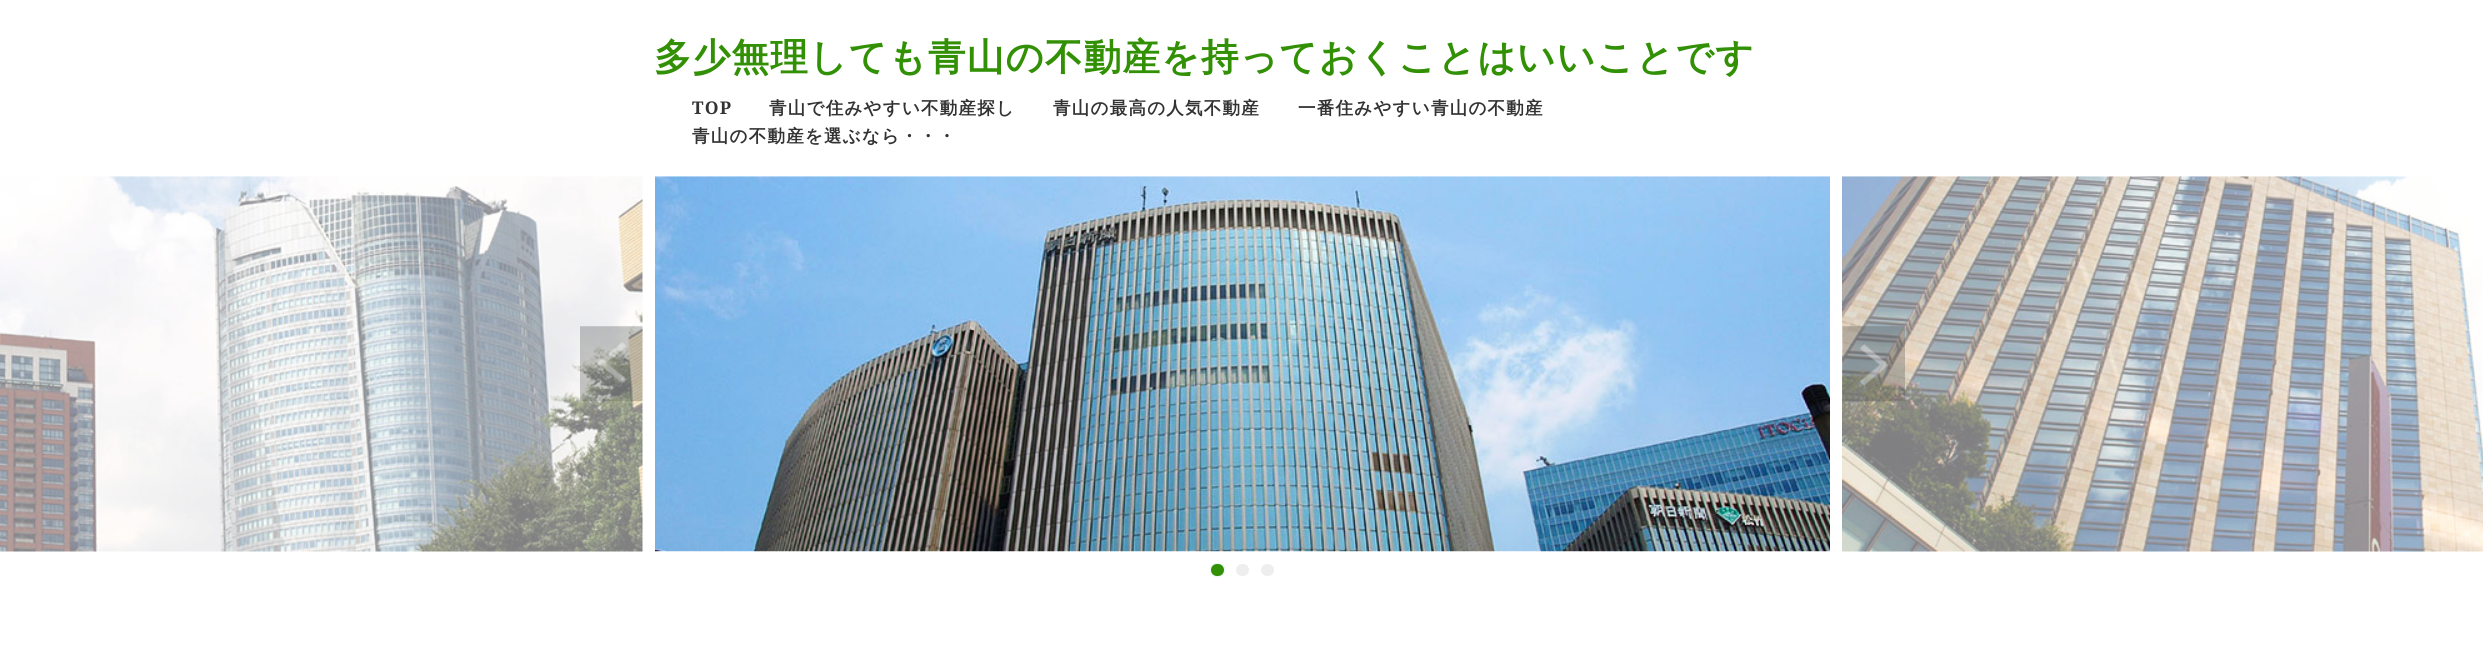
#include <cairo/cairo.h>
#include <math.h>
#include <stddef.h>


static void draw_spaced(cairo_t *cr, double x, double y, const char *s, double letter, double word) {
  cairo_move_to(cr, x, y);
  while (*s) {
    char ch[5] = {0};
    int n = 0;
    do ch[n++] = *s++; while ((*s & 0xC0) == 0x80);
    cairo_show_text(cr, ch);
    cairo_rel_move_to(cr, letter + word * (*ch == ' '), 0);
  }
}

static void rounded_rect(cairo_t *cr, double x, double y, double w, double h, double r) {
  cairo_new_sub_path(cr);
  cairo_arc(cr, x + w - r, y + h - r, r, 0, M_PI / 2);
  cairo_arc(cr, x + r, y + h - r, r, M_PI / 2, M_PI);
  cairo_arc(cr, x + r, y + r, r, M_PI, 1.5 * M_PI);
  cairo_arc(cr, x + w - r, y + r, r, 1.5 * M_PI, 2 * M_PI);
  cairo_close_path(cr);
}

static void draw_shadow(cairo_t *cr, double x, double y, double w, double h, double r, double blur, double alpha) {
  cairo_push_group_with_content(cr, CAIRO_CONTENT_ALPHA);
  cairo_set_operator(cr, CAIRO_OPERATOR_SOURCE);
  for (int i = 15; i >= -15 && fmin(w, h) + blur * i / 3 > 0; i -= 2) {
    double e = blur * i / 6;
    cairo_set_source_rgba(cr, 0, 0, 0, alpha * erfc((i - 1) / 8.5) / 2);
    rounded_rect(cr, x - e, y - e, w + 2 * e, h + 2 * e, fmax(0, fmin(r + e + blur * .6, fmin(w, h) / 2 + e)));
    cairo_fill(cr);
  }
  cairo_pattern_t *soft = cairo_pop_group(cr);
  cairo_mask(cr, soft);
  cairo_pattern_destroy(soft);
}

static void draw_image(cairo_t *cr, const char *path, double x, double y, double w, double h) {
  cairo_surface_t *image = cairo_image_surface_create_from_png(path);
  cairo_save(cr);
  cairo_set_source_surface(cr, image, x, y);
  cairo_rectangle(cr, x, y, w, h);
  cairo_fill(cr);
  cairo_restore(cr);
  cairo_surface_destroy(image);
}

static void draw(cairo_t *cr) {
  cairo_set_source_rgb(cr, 1, 1, 1);
  cairo_paint(cr);
  draw_image(cr, "images/1.png", 0, 176, 643, 376);
  draw_image(cr, "images/2.png", 655, 176, 1175, 376);
  draw_image(cr, "images/3.png", 1842, 176, 641, 376);
  draw_image(cr, "images/4.png", 580, 326, 63, 76);
  draw_image(cr, "images/5.png", 1842, 326, 63, 76);
  cairo_set_source_rgb(cr, 133 / 255.0, 209 / 255.0, 198 / 255.0);
  draw_shadow(cr, 1211, 564, 13, 12, 6, 1, 0.5);
  cairo_set_source_rgb(cr, 50 / 255.0, 144 / 255.0, 4 / 255.0);
  rounded_rect(cr, 1211, 564, 13, 12, 6);
  cairo_fill(cr);
  cairo_set_source_rgb(cr, 238 / 255.0, 238 / 255.0, 238 / 255.0);
  rounded_rect(cr, 1236, 564, 13, 12, 6);
  cairo_fill(cr);
  rounded_rect(cr, 1261, 564, 13, 12, 6);
  cairo_fill(cr);
  cairo_select_font_face(cr, "WenQuanYi Zen Hei", CAIRO_FONT_SLANT_NORMAL, CAIRO_FONT_WEIGHT_BOLD);
  cairo_set_font_size(cr, 37.5);
  cairo_set_source_rgb(cr, 50 / 255.0, 144 / 255.0, 4 / 255.0);
  draw_spaced(cr, 654, 70, "多少無理しても青山の不動産を持っておくことはいいことです", 1.25, 0);
  cairo_select_font_face(cr, "Noto Serif", CAIRO_FONT_SLANT_NORMAL, CAIRO_FONT_WEIGHT_BOLD);
  cairo_set_font_size(cr, 17.5);
  cairo_set_source_rgb(cr, 51 / 255.0, 51 / 255.0, 51 / 255.0);
  draw_spaced(cr, 692, 114, "TOP", 1.25, 0);
  cairo_select_font_face(cr, "WenQuanYi Zen Hei", CAIRO_FONT_SLANT_NORMAL, CAIRO_FONT_WEIGHT_BOLD);
  draw_spaced(cr, 769, 114, "青山で住みやすい不動産探し", 1.25, 0);
  draw_spaced(cr, 1053, 114, "青山の最高の人気不動産", 1.25, 0);
  draw_spaced(cr, 1298, 114, "一番住みやすい青山の不動産", 1.25, 0);
  draw_spaced(cr, 692, 142, "青山の不動産を選ぶなら・・・", 1.25, 0);
}

int main(void) {
  cairo_surface_t *surface = cairo_image_surface_create(CAIRO_FORMAT_RGB24, 2483, 665);
  cairo_t *cr = cairo_create(surface);
  cairo_font_options_t *options = cairo_font_options_create();
  cairo_font_options_set_hint_metrics(options, CAIRO_HINT_METRICS_OFF);
  cairo_font_options_set_hint_style(options, CAIRO_HINT_STYLE_NONE);
  cairo_set_font_options(cr, options);
  cairo_set_miter_limit(cr, 4);
  draw(cr);
  cairo_surface_write_to_png(surface, "out.png");
  cairo_font_options_destroy(options);
  cairo_destroy(cr);
  cairo_surface_destroy(surface);
  return 0;
}
